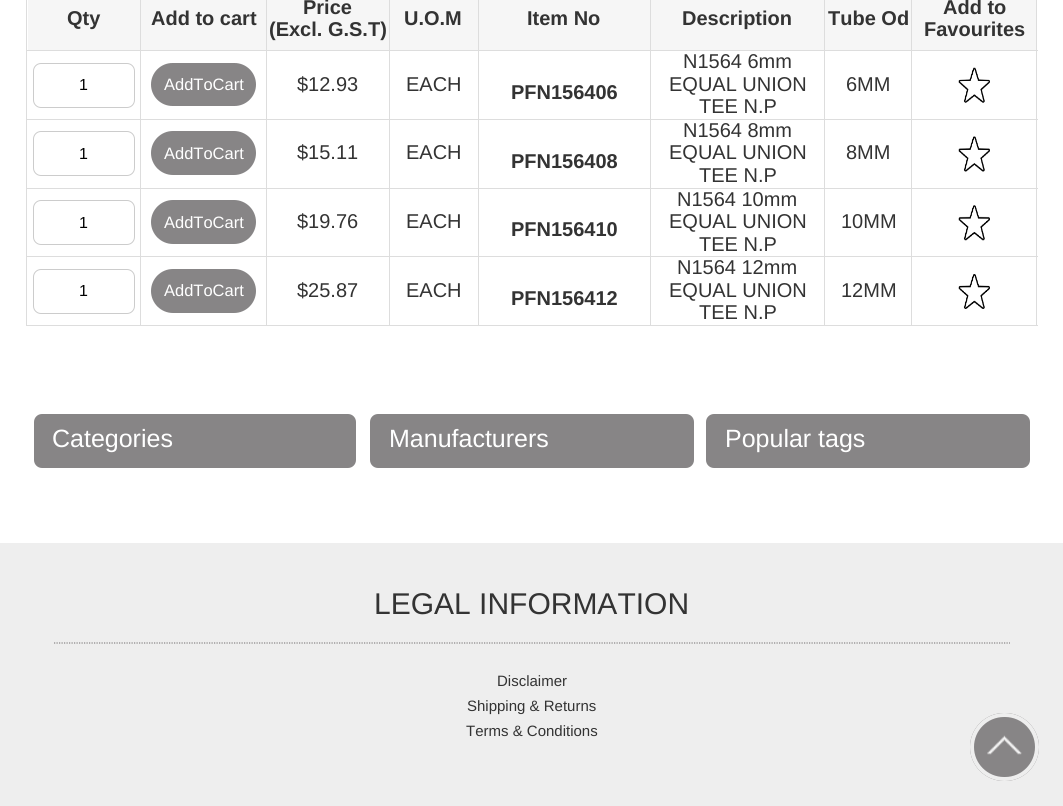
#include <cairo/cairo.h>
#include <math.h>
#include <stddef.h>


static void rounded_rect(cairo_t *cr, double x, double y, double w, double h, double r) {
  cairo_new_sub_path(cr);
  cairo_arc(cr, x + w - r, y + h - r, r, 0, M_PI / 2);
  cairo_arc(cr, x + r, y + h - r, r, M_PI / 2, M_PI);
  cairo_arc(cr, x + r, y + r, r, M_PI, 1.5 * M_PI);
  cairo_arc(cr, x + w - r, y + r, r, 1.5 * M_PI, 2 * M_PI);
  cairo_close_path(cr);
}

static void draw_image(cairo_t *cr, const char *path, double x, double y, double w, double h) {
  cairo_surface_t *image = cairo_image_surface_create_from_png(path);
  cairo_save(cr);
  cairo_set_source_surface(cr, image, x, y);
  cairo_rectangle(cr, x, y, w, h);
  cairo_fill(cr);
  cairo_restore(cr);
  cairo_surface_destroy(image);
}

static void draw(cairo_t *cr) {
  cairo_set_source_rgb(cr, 1, 1, 1);
  cairo_paint(cr);
  cairo_set_source_rgb(cr, 246 / 255.0, 246 / 255.0, 246 / 255.0);
  cairo_rectangle(cr, 28, 0, 1008, 50);
  cairo_fill(cr);
  cairo_set_source_rgb(cr, 221 / 255.0, 221 / 255.0, 221 / 255.0);
  cairo_rectangle(cr, 911, 50, 127, 1);
  cairo_fill(cr);
  cairo_rectangle(cr, 911, 119, 127, 1);
  cairo_fill(cr);
  cairo_rectangle(cr, 911, 188, 127, 1);
  cairo_fill(cr);
  cairo_rectangle(cr, 911, 256, 127, 1);
  cairo_fill(cr);
  cairo_rectangle(cr, 1036, 256, 1, 70);
  cairo_fill(cr);
  cairo_rectangle(cr, 911, 325, 127, 1);
  cairo_fill(cr);
  cairo_rectangle(cr, 911, 256, 1, 70);
  cairo_fill(cr);
  cairo_rectangle(cr, 824, 256, 89, 1);
  cairo_fill(cr);
  cairo_rectangle(cr, 911, 188, 1, 70);
  cairo_fill(cr);
  cairo_rectangle(cr, 824, 188, 89, 1);
  cairo_fill(cr);
  cairo_rectangle(cr, 911, 119, 1, 70);
  cairo_fill(cr);
  cairo_rectangle(cr, 824, 119, 89, 1);
  cairo_fill(cr);
  cairo_rectangle(cr, 911, 50, 1, 70);
  cairo_fill(cr);
  cairo_rectangle(cr, 824, 50, 89, 1);
  cairo_fill(cr);
  cairo_rectangle(cr, 824, 325, 89, 1);
  cairo_fill(cr);
  cairo_rectangle(cr, 824, 256, 1, 70);
  cairo_fill(cr);
  cairo_rectangle(cr, 650, 256, 175, 1);
  cairo_fill(cr);
  cairo_rectangle(cr, 824, 188, 1, 70);
  cairo_fill(cr);
  cairo_rectangle(cr, 650, 188, 175, 1);
  cairo_fill(cr);
  cairo_rectangle(cr, 824, 119, 1, 70);
  cairo_fill(cr);
  cairo_rectangle(cr, 650, 119, 175, 1);
  cairo_fill(cr);
  cairo_rectangle(cr, 824, 50, 1, 70);
  cairo_fill(cr);
  cairo_rectangle(cr, 650, 50, 175, 1);
  cairo_fill(cr);
  cairo_rectangle(cr, 650, 325, 175, 1);
  cairo_fill(cr);
  cairo_rectangle(cr, 650, 256, 1, 70);
  cairo_fill(cr);
  cairo_rectangle(cr, 478, 256, 173, 1);
  cairo_fill(cr);
  cairo_rectangle(cr, 650, 188, 1, 70);
  cairo_fill(cr);
  cairo_rectangle(cr, 478, 188, 173, 1);
  cairo_fill(cr);
  cairo_rectangle(cr, 650, 119, 1, 70);
  cairo_fill(cr);
  cairo_rectangle(cr, 478, 119, 173, 1);
  cairo_fill(cr);
  cairo_rectangle(cr, 650, 50, 1, 70);
  cairo_fill(cr);
  cairo_rectangle(cr, 478, 50, 173, 1);
  cairo_fill(cr);
  cairo_rectangle(cr, 478, 325, 173, 1);
  cairo_fill(cr);
  cairo_rectangle(cr, 478, 256, 1, 70);
  cairo_fill(cr);
  cairo_rectangle(cr, 389, 256, 90, 1);
  cairo_fill(cr);
  cairo_rectangle(cr, 478, 188, 1, 70);
  cairo_fill(cr);
  cairo_rectangle(cr, 389, 188, 90, 1);
  cairo_fill(cr);
  cairo_rectangle(cr, 478, 119, 1, 70);
  cairo_fill(cr);
  cairo_rectangle(cr, 389, 119, 90, 1);
  cairo_fill(cr);
  cairo_rectangle(cr, 478, 50, 1, 70);
  cairo_fill(cr);
  cairo_rectangle(cr, 389, 50, 90, 1);
  cairo_fill(cr);
  cairo_rectangle(cr, 389, 325, 90, 1);
  cairo_fill(cr);
  cairo_rectangle(cr, 389, 256, 1, 70);
  cairo_fill(cr);
  cairo_rectangle(cr, 266, 256, 124, 1);
  cairo_fill(cr);
  cairo_rectangle(cr, 389, 188, 1, 70);
  cairo_fill(cr);
  cairo_rectangle(cr, 266, 188, 124, 1);
  cairo_fill(cr);
  cairo_rectangle(cr, 389, 119, 1, 70);
  cairo_fill(cr);
  cairo_rectangle(cr, 266, 119, 124, 1);
  cairo_fill(cr);
  cairo_rectangle(cr, 389, 50, 1, 70);
  cairo_fill(cr);
  cairo_rectangle(cr, 266, 50, 124, 1);
  cairo_fill(cr);
  cairo_rectangle(cr, 266, 325, 124, 1);
  cairo_fill(cr);
  cairo_rectangle(cr, 266, 256, 1, 70);
  cairo_fill(cr);
  cairo_rectangle(cr, 140, 256, 128, 1);
  cairo_fill(cr);
  cairo_rectangle(cr, 266, 188, 1, 70);
  cairo_fill(cr);
  cairo_rectangle(cr, 140, 188, 128, 1);
  cairo_fill(cr);
  cairo_rectangle(cr, 266, 119, 1, 70);
  cairo_fill(cr);
  cairo_rectangle(cr, 140, 119, 128, 1);
  cairo_fill(cr);
  cairo_rectangle(cr, 266, 50, 1, 70);
  cairo_fill(cr);
  cairo_rectangle(cr, 140, 50, 128, 1);
  cairo_fill(cr);
  cairo_rectangle(cr, 140, 325, 128, 1);
  cairo_fill(cr);
  cairo_rectangle(cr, 140, 256, 1, 70);
  cairo_fill(cr);
  cairo_rectangle(cr, 26, 256, 115, 1);
  cairo_fill(cr);
  cairo_rectangle(cr, 140, 188, 1, 70);
  cairo_fill(cr);
  cairo_rectangle(cr, 26, 188, 115, 1);
  cairo_fill(cr);
  cairo_rectangle(cr, 140, 119, 1, 70);
  cairo_fill(cr);
  cairo_rectangle(cr, 26, 119, 115, 1);
  cairo_fill(cr);
  cairo_rectangle(cr, 140, 50, 1, 70);
  cairo_fill(cr);
  cairo_rectangle(cr, 26, 50, 115, 1);
  cairo_fill(cr);
  cairo_rectangle(cr, 140, 0, 1, 51);
  cairo_fill(cr);
  cairo_rectangle(cr, 266, 0, 1, 51);
  cairo_fill(cr);
  cairo_rectangle(cr, 389, 0, 1, 51);
  cairo_fill(cr);
  cairo_rectangle(cr, 478, 0, 1, 51);
  cairo_fill(cr);
  cairo_rectangle(cr, 650, 0, 1, 51);
  cairo_fill(cr);
  cairo_rectangle(cr, 824, 0, 1, 51);
  cairo_fill(cr);
  cairo_rectangle(cr, 911, 0, 1, 51);
  cairo_fill(cr);
  cairo_rectangle(cr, 26, 325, 115, 1);
  cairo_fill(cr);
  cairo_rectangle(cr, 26, 256, 1, 70);
  cairo_fill(cr);
  cairo_rectangle(cr, 26, 188, 1, 70);
  cairo_fill(cr);
  cairo_rectangle(cr, 26, 119, 1, 70);
  cairo_fill(cr);
  cairo_rectangle(cr, 26, 0, 1, 120);
  cairo_fill(cr);
  rounded_rect(cr, 33.5, 63.5, 101, 44, 7.5);
  cairo_set_source_rgb(cr, 204 / 255.0, 204 / 255.0, 204 / 255.0);
  cairo_set_line_width(cr, 1);
  cairo_stroke(cr);
  cairo_set_source_rgb(cr, 135 / 255.0, 133 / 255.0, 134 / 255.0);
  rounded_rect(cr, 151, 63, 105, 43, 21.5);
  cairo_fill(cr);
  cairo_set_source_rgb(cr, 221 / 255.0, 221 / 255.0, 221 / 255.0);
  cairo_rectangle(cr, 1036, 188, 1, 70);
  cairo_fill(cr);
  cairo_rectangle(cr, 1036, 119, 1, 70);
  cairo_fill(cr);
  cairo_rectangle(cr, 1036, 0, 1, 120);
  cairo_fill(cr);
  draw_image(cr, "images/1.png", 958, 67, 32, 36);
  rounded_rect(cr, 33.5, 131.5, 101, 44, 7.5);
  cairo_set_source_rgb(cr, 204 / 255.0, 204 / 255.0, 204 / 255.0);
  cairo_stroke(cr);
  cairo_set_source_rgb(cr, 135 / 255.0, 133 / 255.0, 134 / 255.0);
  rounded_rect(cr, 151, 131, 105, 44, 22);
  cairo_fill(cr);
  draw_image(cr, "images/2.png", 958, 136, 32, 36);
  rounded_rect(cr, 33.5, 200.5, 101, 44, 7.5);
  cairo_set_source_rgb(cr, 204 / 255.0, 204 / 255.0, 204 / 255.0);
  cairo_stroke(cr);
  cairo_set_source_rgb(cr, 135 / 255.0, 133 / 255.0, 134 / 255.0);
  rounded_rect(cr, 151, 200, 105, 44, 22);
  cairo_fill(cr);
  draw_image(cr, "images/3.png", 958, 205, 32, 36);
  rounded_rect(cr, 33.5, 269.5, 101, 44, 7.5);
  cairo_set_source_rgb(cr, 204 / 255.0, 204 / 255.0, 204 / 255.0);
  cairo_stroke(cr);
  cairo_set_source_rgb(cr, 135 / 255.0, 133 / 255.0, 134 / 255.0);
  rounded_rect(cr, 151, 269, 105, 44, 22);
  cairo_fill(cr);
  draw_image(cr, "images/4.png", 958, 274, 32, 35);
  rounded_rect(cr, 34, 414, 322, 54, 8);
  cairo_fill(cr);
  rounded_rect(cr, 370, 414, 324, 54, 8);
  cairo_fill(cr);
  rounded_rect(cr, 706, 414, 324, 54, 8);
  cairo_fill(cr);
  cairo_set_source_rgb(cr, 238 / 255.0, 238 / 255.0, 238 / 255.0);
  cairo_rectangle(cr, 0, 543, 1063, 263);
  cairo_fill(cr);
  cairo_new_path(cr);
  cairo_move_to(cr, 54, 643);
  cairo_line_to(cr, 1010, 643);
  cairo_set_source_rgb(cr, 135 / 255.0, 133 / 255.0, 134 / 255.0);
  cairo_set_line_width(cr, 1.2);
  cairo_set_dash(cr, (double[]){1.25, 1.25}, 2, 0);
  cairo_stroke(cr);
  rounded_rect(cr, 970, 713, 69, 68, 34);
  cairo_fill(cr);
  draw_image(cr, "images/5.png", 987, 735, 35, 20);
  rounded_rect(cr, 972, 715, 65, 64, 32);
  cairo_set_source_rgb(cr, 238 / 255.0, 238 / 255.0, 238 / 255.0);
  cairo_set_line_width(cr, 4);
  cairo_set_dash(cr, NULL, 0, 0);
  cairo_stroke(cr);
  cairo_select_font_face(cr, "Liberation Sans", CAIRO_FONT_SLANT_NORMAL, CAIRO_FONT_WEIGHT_BOLD);
  cairo_set_font_size(cr, 20);
  cairo_set_source_rgb(cr, 51 / 255.0, 51 / 255.0, 51 / 255.0);
  cairo_move_to(cr, 67, 25);
  cairo_show_text(cr, "Qty");
  cairo_move_to(cr, 151, 25);
  cairo_show_text(cr, "Add to cart");
  cairo_move_to(cr, 303, 14);
  cairo_show_text(cr, "Price");
  cairo_move_to(cr, 269, 36);
  cairo_show_text(cr, "(Excl. G.S.T)");
  cairo_move_to(cr, 404, 25);
  cairo_show_text(cr, "U.O.M");
  cairo_move_to(cr, 527, 25);
  cairo_show_text(cr, "Item No");
  cairo_move_to(cr, 682, 25);
  cairo_show_text(cr, "Description");
  cairo_move_to(cr, 828, 25);
  cairo_show_text(cr, "Tube Od");
  cairo_move_to(cr, 943, 14);
  cairo_show_text(cr, "Add to");
  cairo_move_to(cr, 924, 36);
  cairo_show_text(cr, "Favourites");
  cairo_select_font_face(cr, "Liberation Sans", CAIRO_FONT_SLANT_NORMAL, CAIRO_FONT_WEIGHT_NORMAL);
  cairo_set_font_size(cr, 16);
  cairo_set_source_rgb(cr, 0, 0, 0);
  cairo_move_to(cr, 79, 90);
  cairo_show_text(cr, "1");
  cairo_set_font_size(cr, 16.5);
  cairo_set_source_rgb(cr, 1, 1, 1);
  cairo_move_to(cr, 164, 90);
  cairo_show_text(cr, "AddToCart");
  cairo_set_font_size(cr, 20);
  cairo_set_source_rgb(cr, 51 / 255.0, 51 / 255.0, 51 / 255.0);
  cairo_move_to(cr, 297, 91);
  cairo_show_text(cr, "$12.93");
  cairo_move_to(cr, 406, 91);
  cairo_show_text(cr, "EACH");
  cairo_select_font_face(cr, "Liberation Sans", CAIRO_FONT_SLANT_NORMAL, CAIRO_FONT_WEIGHT_BOLD);
  cairo_move_to(cr, 511, 99);
  cairo_show_text(cr, "PFN156406");
  cairo_select_font_face(cr, "Liberation Sans", CAIRO_FONT_SLANT_NORMAL, CAIRO_FONT_WEIGHT_NORMAL);
  cairo_move_to(cr, 683, 68);
  cairo_show_text(cr, "N1564 6mm");
  cairo_move_to(cr, 669, 91);
  cairo_show_text(cr, "EQUAL UNION");
  cairo_move_to(cr, 699, 113);
  cairo_show_text(cr, "TEE N.P");
  cairo_move_to(cr, 846, 91);
  cairo_show_text(cr, "6MM");
  cairo_set_font_size(cr, 16);
  cairo_set_source_rgb(cr, 0, 0, 0);
  cairo_move_to(cr, 79, 159);
  cairo_show_text(cr, "1");
  cairo_set_font_size(cr, 16.5);
  cairo_set_source_rgb(cr, 1, 1, 1);
  cairo_move_to(cr, 164, 159);
  cairo_show_text(cr, "AddToCart");
  cairo_set_font_size(cr, 20);
  cairo_set_source_rgb(cr, 51 / 255.0, 51 / 255.0, 51 / 255.0);
  cairo_move_to(cr, 297, 159);
  cairo_show_text(cr, "$15.11");
  cairo_move_to(cr, 406, 159);
  cairo_show_text(cr, "EACH");
  cairo_select_font_face(cr, "Liberation Sans", CAIRO_FONT_SLANT_NORMAL, CAIRO_FONT_WEIGHT_BOLD);
  cairo_move_to(cr, 511, 168);
  cairo_show_text(cr, "PFN156408");
  cairo_select_font_face(cr, "Liberation Sans", CAIRO_FONT_SLANT_NORMAL, CAIRO_FONT_WEIGHT_NORMAL);
  cairo_move_to(cr, 683, 137);
  cairo_show_text(cr, "N1564 8mm");
  cairo_move_to(cr, 669, 159);
  cairo_show_text(cr, "EQUAL UNION");
  cairo_move_to(cr, 699, 182);
  cairo_show_text(cr, "TEE N.P");
  cairo_move_to(cr, 846, 159);
  cairo_show_text(cr, "8MM");
  cairo_set_font_size(cr, 16);
  cairo_set_source_rgb(cr, 0, 0, 0);
  cairo_move_to(cr, 79, 228);
  cairo_show_text(cr, "1");
  cairo_set_font_size(cr, 16.5);
  cairo_set_source_rgb(cr, 1, 1, 1);
  cairo_move_to(cr, 164, 228);
  cairo_show_text(cr, "AddToCart");
  cairo_set_font_size(cr, 20);
  cairo_set_source_rgb(cr, 51 / 255.0, 51 / 255.0, 51 / 255.0);
  cairo_move_to(cr, 297, 228);
  cairo_show_text(cr, "$19.76");
  cairo_move_to(cr, 406, 228);
  cairo_show_text(cr, "EACH");
  cairo_select_font_face(cr, "Liberation Sans", CAIRO_FONT_SLANT_NORMAL, CAIRO_FONT_WEIGHT_BOLD);
  cairo_move_to(cr, 511, 236);
  cairo_show_text(cr, "PFN156410");
  cairo_select_font_face(cr, "Liberation Sans", CAIRO_FONT_SLANT_NORMAL, CAIRO_FONT_WEIGHT_NORMAL);
  cairo_move_to(cr, 677, 206);
  cairo_show_text(cr, "N1564 10mm");
  cairo_move_to(cr, 669, 228);
  cairo_show_text(cr, "EQUAL UNION");
  cairo_move_to(cr, 699, 251);
  cairo_show_text(cr, "TEE N.P");
  cairo_move_to(cr, 841, 228);
  cairo_show_text(cr, "10MM");
  cairo_set_font_size(cr, 16);
  cairo_set_source_rgb(cr, 0, 0, 0);
  cairo_move_to(cr, 79, 296);
  cairo_show_text(cr, "1");
  cairo_set_font_size(cr, 16.5);
  cairo_set_source_rgb(cr, 1, 1, 1);
  cairo_move_to(cr, 164, 296);
  cairo_show_text(cr, "AddToCart");
  cairo_set_font_size(cr, 20);
  cairo_set_source_rgb(cr, 51 / 255.0, 51 / 255.0, 51 / 255.0);
  cairo_move_to(cr, 297, 297);
  cairo_show_text(cr, "$25.87");
  cairo_move_to(cr, 406, 297);
  cairo_show_text(cr, "EACH");
  cairo_select_font_face(cr, "Liberation Sans", CAIRO_FONT_SLANT_NORMAL, CAIRO_FONT_WEIGHT_BOLD);
  cairo_move_to(cr, 511, 305);
  cairo_show_text(cr, "PFN156412");
  cairo_select_font_face(cr, "Liberation Sans", CAIRO_FONT_SLANT_NORMAL, CAIRO_FONT_WEIGHT_NORMAL);
  cairo_move_to(cr, 677, 274);
  cairo_show_text(cr, "N1564 12mm");
  cairo_move_to(cr, 669, 297);
  cairo_show_text(cr, "EQUAL UNION");
  cairo_move_to(cr, 699, 319);
  cairo_show_text(cr, "TEE N.P");
  cairo_move_to(cr, 841, 297);
  cairo_show_text(cr, "12MM");
  cairo_set_font_size(cr, 25);
  cairo_set_source_rgb(cr, 1, 1, 1);
  cairo_move_to(cr, 52, 447);
  cairo_show_text(cr, "Categories");
  cairo_move_to(cr, 389, 447);
  cairo_show_text(cr, "Manufacturers");
  cairo_move_to(cr, 725, 447);
  cairo_show_text(cr, "Popular tags");
  cairo_set_font_size(cr, 30);
  cairo_set_source_rgb(cr, 51 / 255.0, 51 / 255.0, 51 / 255.0);
  cairo_move_to(cr, 374, 614);
  cairo_show_text(cr, "LEGAL INFORMATION");
  cairo_set_font_size(cr, 15);
  cairo_move_to(cr, 497, 686);
  cairo_show_text(cr, "Disclaimer");
  cairo_move_to(cr, 467, 711);
  cairo_show_text(cr, "Shipping & Returns");
  cairo_move_to(cr, 466, 736);
  cairo_show_text(cr, "Terms & Conditions");
}

int main(void) {
  cairo_surface_t *surface = cairo_image_surface_create(CAIRO_FORMAT_RGB24, 1063, 806);
  cairo_t *cr = cairo_create(surface);
  cairo_font_options_t *options = cairo_font_options_create();
  cairo_font_options_set_hint_metrics(options, CAIRO_HINT_METRICS_OFF);
  cairo_font_options_set_hint_style(options, CAIRO_HINT_STYLE_NONE);
  cairo_set_font_options(cr, options);
  cairo_set_miter_limit(cr, 4);
  draw(cr);
  cairo_surface_write_to_png(surface, "out.png");
  cairo_font_options_destroy(options);
  cairo_destroy(cr);
  cairo_surface_destroy(surface);
  return 0;
}
